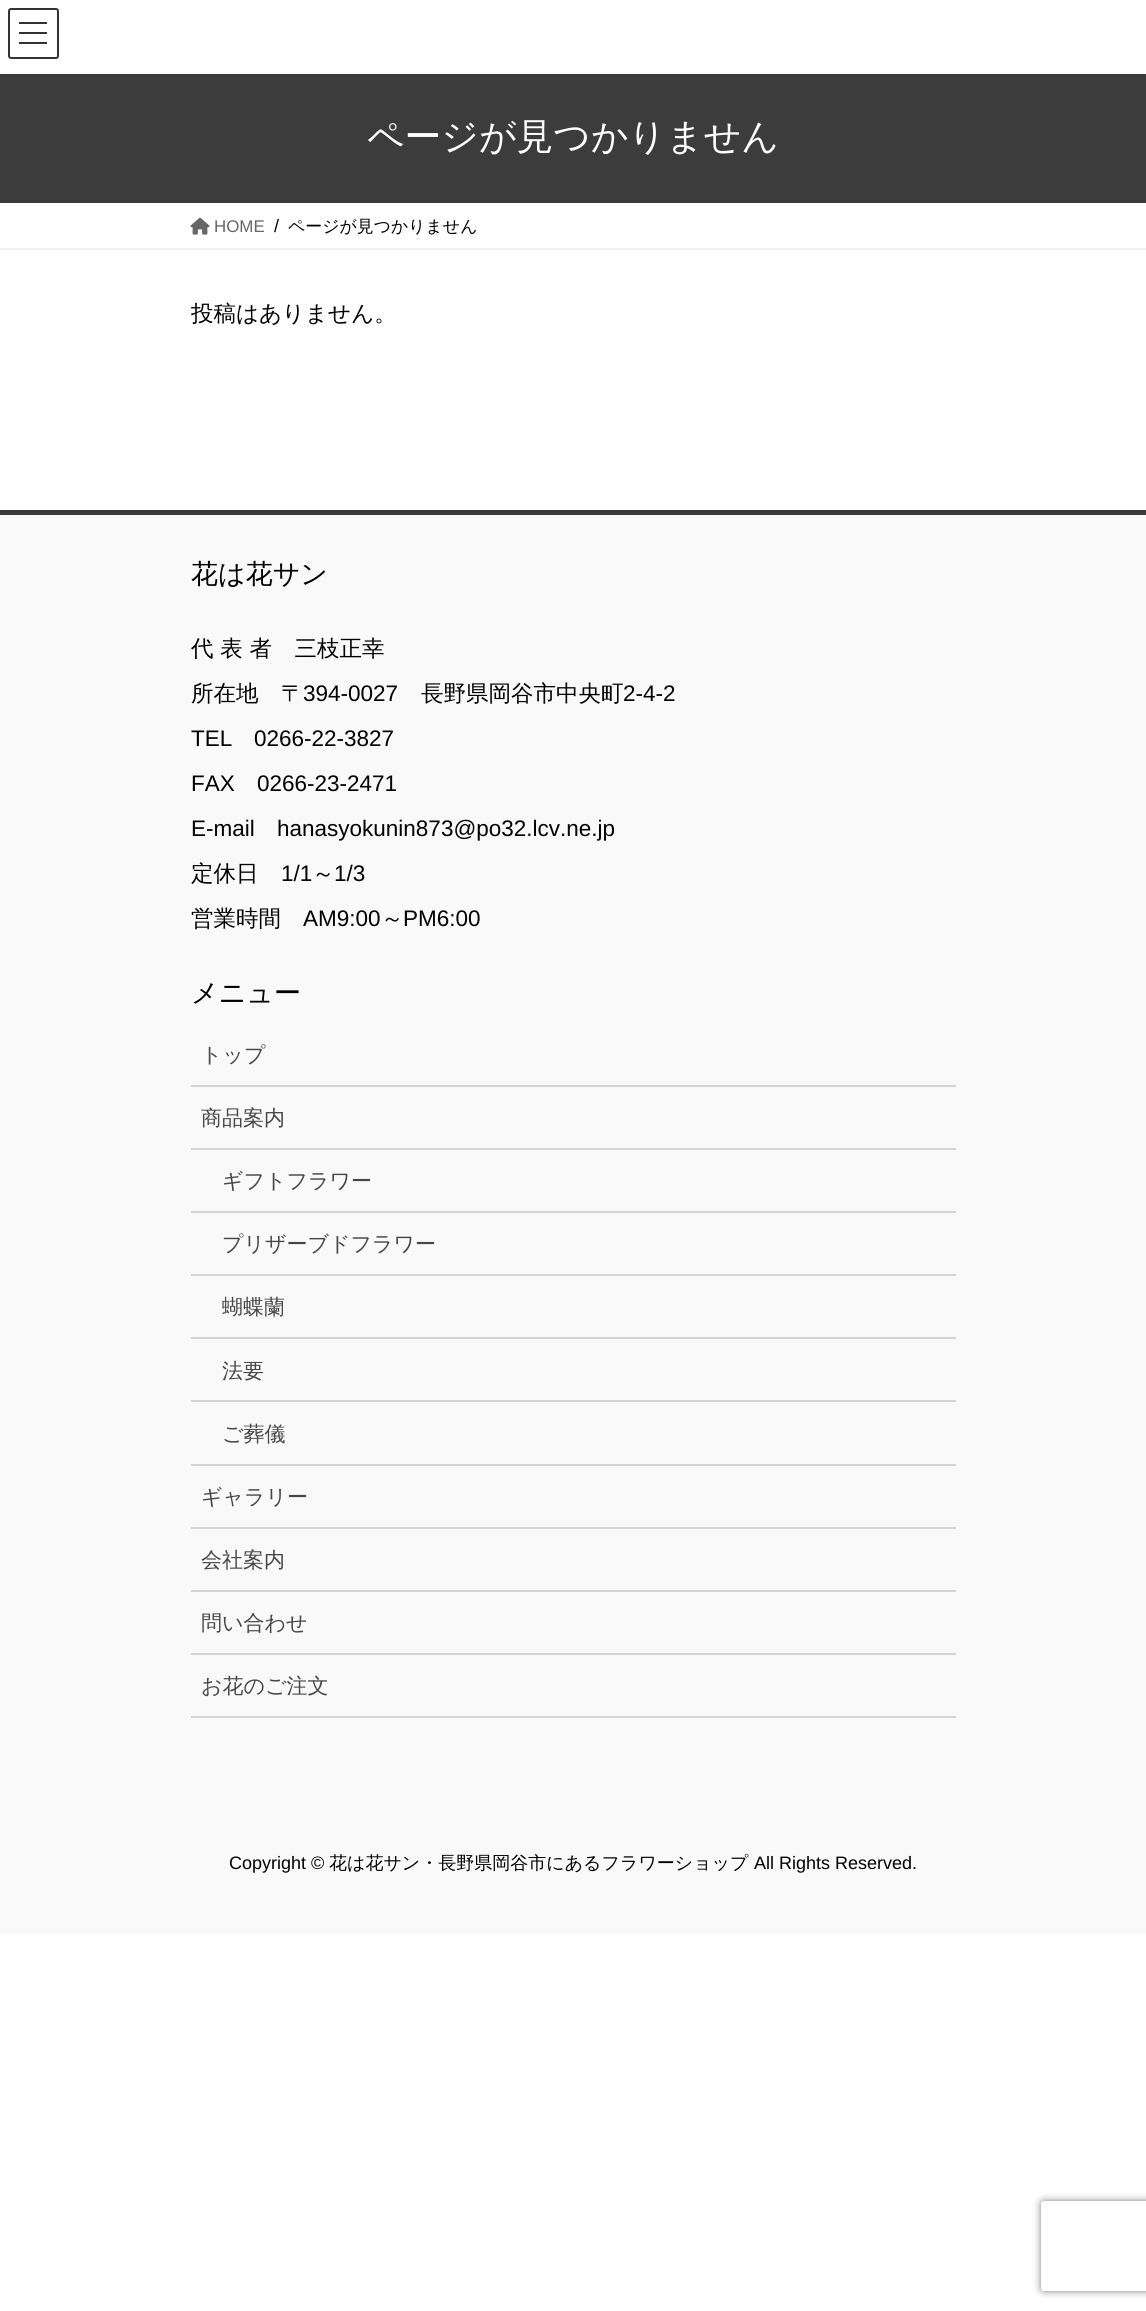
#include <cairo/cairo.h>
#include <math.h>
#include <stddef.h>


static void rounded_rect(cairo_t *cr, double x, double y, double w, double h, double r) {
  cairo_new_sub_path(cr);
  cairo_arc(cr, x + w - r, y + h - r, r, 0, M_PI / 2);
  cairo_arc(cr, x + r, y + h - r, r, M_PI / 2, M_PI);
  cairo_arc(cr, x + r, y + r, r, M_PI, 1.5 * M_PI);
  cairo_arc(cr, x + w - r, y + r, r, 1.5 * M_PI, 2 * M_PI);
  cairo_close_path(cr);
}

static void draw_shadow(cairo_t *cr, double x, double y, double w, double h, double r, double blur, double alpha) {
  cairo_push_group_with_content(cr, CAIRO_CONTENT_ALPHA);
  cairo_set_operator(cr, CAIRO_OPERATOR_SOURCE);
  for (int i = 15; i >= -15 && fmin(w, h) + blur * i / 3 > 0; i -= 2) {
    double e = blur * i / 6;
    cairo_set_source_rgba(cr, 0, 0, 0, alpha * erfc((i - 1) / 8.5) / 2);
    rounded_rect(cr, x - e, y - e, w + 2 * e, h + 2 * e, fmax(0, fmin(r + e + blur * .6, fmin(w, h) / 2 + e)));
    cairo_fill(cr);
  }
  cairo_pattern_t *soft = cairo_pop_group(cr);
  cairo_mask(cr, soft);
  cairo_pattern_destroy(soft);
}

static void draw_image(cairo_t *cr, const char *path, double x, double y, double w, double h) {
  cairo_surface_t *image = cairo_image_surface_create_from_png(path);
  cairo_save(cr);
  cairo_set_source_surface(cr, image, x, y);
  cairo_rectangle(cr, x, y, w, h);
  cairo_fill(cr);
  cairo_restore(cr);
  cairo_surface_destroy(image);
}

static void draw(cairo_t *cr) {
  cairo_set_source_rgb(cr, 1, 1, 1);
  cairo_paint(cr);
  cairo_set_source_rgb(cr, 60 / 255.0, 60 / 255.0, 60 / 255.0);
  cairo_rectangle(cr, 0, 74, 1146, 129);
  cairo_fill(cr);
  cairo_set_source_rgb(cr, 0, 0, 0);
  draw_shadow(cr, 0, 2, 1146, 73, 0, 2, 0.1);
  cairo_set_source_rgb(cr, 1, 1, 1);
  cairo_rectangle(cr, 0, 0, 1146, 74);
  cairo_fill(cr);
  cairo_set_source_rgb(cr, 51 / 255.0, 51 / 255.0, 51 / 255.0);
  cairo_rectangle(cr, 19, 22, 28, 2);
  cairo_fill(cr);
  cairo_rectangle(cr, 19, 32, 28, 2);
  cairo_fill(cr);
  cairo_rectangle(cr, 19, 42, 28, 2);
  cairo_fill(cr);
  rounded_rect(cr, 9, 9, 49, 49, 2);
  cairo_stroke(cr);
  cairo_set_source_rgb(cr, 242 / 255.0, 242 / 255.0, 242 / 255.0);
  cairo_rectangle(cr, 0, 248, 1146, 2);
  cairo_fill(cr);
  draw_image(cr, "images/1.png", 190, 217, 20, 18);
  cairo_set_source_rgb(cr, 249 / 255.0, 249 / 255.0, 249 / 255.0);
  cairo_rectangle(cr, 0, 515, 1146, 1419);
  cairo_fill(cr);
  cairo_set_source_rgb(cr, 60 / 255.0, 60 / 255.0, 60 / 255.0);
  cairo_rectangle(cr, 0, 510, 1146, 5);
  cairo_fill(cr);
  cairo_set_source_rgb(cr, 212 / 255.0, 212 / 255.0, 212 / 255.0);
  cairo_rectangle(cr, 191, 1085, 765, 2);
  cairo_fill(cr);
  cairo_rectangle(cr, 191, 1148, 765, 2);
  cairo_fill(cr);
  cairo_rectangle(cr, 191, 1211, 765, 2);
  cairo_fill(cr);
  cairo_rectangle(cr, 191, 1274, 765, 2);
  cairo_fill(cr);
  cairo_rectangle(cr, 191, 1337, 765, 2);
  cairo_fill(cr);
  cairo_rectangle(cr, 191, 1400, 765, 2);
  cairo_fill(cr);
  cairo_rectangle(cr, 191, 1464, 765, 2);
  cairo_fill(cr);
  cairo_rectangle(cr, 191, 1527, 765, 2);
  cairo_fill(cr);
  cairo_rectangle(cr, 191, 1590, 765, 2);
  cairo_fill(cr);
  cairo_rectangle(cr, 191, 1653, 765, 2);
  cairo_fill(cr);
  cairo_rectangle(cr, 191, 1716, 765, 2);
  cairo_fill(cr);
  cairo_save(cr);
  cairo_set_fill_rule(cr, CAIRO_FILL_RULE_EVEN_ODD);
  cairo_new_path(cr);
  cairo_move_to(cr, 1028, 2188);
  cairo_line_to(cr, 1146, 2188);
  cairo_line_to(cr, 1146, 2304);
  cairo_line_to(cr, 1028, 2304);
  cairo_close_path(cr);
  cairo_move_to(cr, 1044, 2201);
  cairo_line_to(cr, 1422, 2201);
  cairo_curve_to(cr, 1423.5, 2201, 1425, 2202.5, 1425, 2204);
  cairo_line_to(cr, 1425, 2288);
  cairo_curve_to(cr, 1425, 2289.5, 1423.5, 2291, 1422, 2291);
  cairo_line_to(cr, 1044, 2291);
  cairo_curve_to(cr, 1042.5, 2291, 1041, 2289.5, 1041, 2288);
  cairo_line_to(cr, 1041, 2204);
  cairo_curve_to(cr, 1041, 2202.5, 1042.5, 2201, 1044, 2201);
  cairo_close_path(cr);
  cairo_clip(cr);
  cairo_set_source_rgb(cr, 128 / 255.0, 128 / 255.0, 128 / 255.0);
  draw_shadow(cr, 1041, 2201, 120, 90, 3, 4, 1);
  cairo_restore(cr);
  cairo_select_font_face(cr, "WenQuanYi Zen Hei Medium", CAIRO_FONT_SLANT_NORMAL, CAIRO_FONT_WEIGHT_NORMAL);
  cairo_set_font_size(cr, 36.75);
  cairo_set_source_rgb(cr, 1, 1, 1);
  cairo_move_to(cr, 367, 149);
  cairo_show_text(cr, "ページが見つかりません");
  cairo_select_font_face(cr, "Liberation Sans", CAIRO_FONT_SLANT_NORMAL, CAIRO_FONT_WEIGHT_NORMAL);
  cairo_set_font_size(cr, 16.9);
  cairo_set_source_rgb(cr, 102 / 255.0, 102 / 255.0, 102 / 255.0);
  cairo_move_to(cr, 214, 232);
  cairo_show_text(cr, "HOME");
  cairo_set_font_size(cr, 18);
  cairo_set_source_rgb(cr, 0, 0, 0);
  cairo_move_to(cr, 274, 232);
  cairo_show_text(cr, "/");
  cairo_select_font_face(cr, "WenQuanYi Zen Hei Medium", CAIRO_FONT_SLANT_NORMAL, CAIRO_FONT_WEIGHT_NORMAL);
  cairo_set_font_size(cr, 16.9);
  cairo_move_to(cr, 288, 232);
  cairo_show_text(cr, "ページが見つかりません");
  cairo_set_font_size(cr, 22.5);
  cairo_move_to(cr, 191, 321);
  cairo_show_text(cr, "投稿はありません。");
  cairo_set_font_size(cr, 27);
  cairo_move_to(cr, 191, 583);
  cairo_show_text(cr, "花は花サン");
  cairo_set_font_size(cr, 22.5);
  cairo_move_to(cr, 191, 656);
  cairo_show_text(cr, "代 表 者　三枝正幸");
  cairo_move_to(cr, 191, 701);
  cairo_show_text(cr, "所在地　〒");
  cairo_select_font_face(cr, "Liberation Sans", CAIRO_FONT_SLANT_NORMAL, CAIRO_FONT_WEIGHT_NORMAL);
  cairo_move_to(cr, 303, 701);
  cairo_show_text(cr, "394-0027");
  cairo_select_font_face(cr, "WenQuanYi Zen Hei Medium", CAIRO_FONT_SLANT_NORMAL, CAIRO_FONT_WEIGHT_NORMAL);
  cairo_move_to(cr, 421, 701);
  cairo_show_text(cr, "長野県岡谷市中央町");
  cairo_select_font_face(cr, "Liberation Sans", CAIRO_FONT_SLANT_NORMAL, CAIRO_FONT_WEIGHT_NORMAL);
  cairo_move_to(cr, 623, 701);
  cairo_show_text(cr, "2-4-2");
  cairo_move_to(cr, 191, 746);
  cairo_show_text(cr, "TEL");
  cairo_move_to(cr, 254, 746);
  cairo_show_text(cr, "0266-22-3827");
  cairo_move_to(cr, 191, 791);
  cairo_show_text(cr, "FAX");
  cairo_move_to(cr, 257, 791);
  cairo_show_text(cr, "0266-23-2471");
  cairo_move_to(cr, 191, 836);
  cairo_show_text(cr, "E-mail");
  cairo_move_to(cr, 277, 836);
  cairo_show_text(cr, "hanasyokunin873@po32.lcv.ne.jp");
  cairo_select_font_face(cr, "WenQuanYi Zen Hei Medium", CAIRO_FONT_SLANT_NORMAL, CAIRO_FONT_WEIGHT_NORMAL);
  cairo_move_to(cr, 191, 881);
  cairo_show_text(cr, "定休日");
  cairo_select_font_face(cr, "Liberation Sans", CAIRO_FONT_SLANT_NORMAL, CAIRO_FONT_WEIGHT_NORMAL);
  cairo_move_to(cr, 281, 881);
  cairo_show_text(cr, "1/1");
  cairo_select_font_face(cr, "WenQuanYi Zen Hei Medium", CAIRO_FONT_SLANT_NORMAL, CAIRO_FONT_WEIGHT_NORMAL);
  cairo_move_to(cr, 312, 881);
  cairo_show_text(cr, "～");
  cairo_select_font_face(cr, "Liberation Sans", CAIRO_FONT_SLANT_NORMAL, CAIRO_FONT_WEIGHT_NORMAL);
  cairo_move_to(cr, 334, 881);
  cairo_show_text(cr, "1/3");
  cairo_select_font_face(cr, "WenQuanYi Zen Hei Medium", CAIRO_FONT_SLANT_NORMAL, CAIRO_FONT_WEIGHT_NORMAL);
  cairo_move_to(cr, 191, 926);
  cairo_show_text(cr, "営業時間");
  cairo_select_font_face(cr, "Liberation Sans", CAIRO_FONT_SLANT_NORMAL, CAIRO_FONT_WEIGHT_NORMAL);
  cairo_move_to(cr, 303, 926);
  cairo_show_text(cr, "AM9:00");
  cairo_select_font_face(cr, "WenQuanYi Zen Hei Medium", CAIRO_FONT_SLANT_NORMAL, CAIRO_FONT_WEIGHT_NORMAL);
  cairo_move_to(cr, 381, 926);
  cairo_show_text(cr, "～");
  cairo_select_font_face(cr, "Liberation Sans", CAIRO_FONT_SLANT_NORMAL, CAIRO_FONT_WEIGHT_NORMAL);
  cairo_move_to(cr, 403, 926);
  cairo_show_text(cr, "PM6:00");
  cairo_select_font_face(cr, "WenQuanYi Zen Hei Medium", CAIRO_FONT_SLANT_NORMAL, CAIRO_FONT_WEIGHT_NORMAL);
  cairo_set_font_size(cr, 27);
  cairo_move_to(cr, 191, 1002);
  cairo_show_text(cr, "メニュー");
  cairo_set_font_size(cr, 21);
  cairo_set_source_rgb(cr, 70 / 255.0, 70 / 255.0, 70 / 255.0);
  cairo_move_to(cr, 201, 1062);
  cairo_show_text(cr, "トップ");
  cairo_move_to(cr, 201, 1125);
  cairo_show_text(cr, "商品案内");
  cairo_move_to(cr, 222, 1188);
  cairo_show_text(cr, "ギフトフラワー");
  cairo_move_to(cr, 222, 1251);
  cairo_show_text(cr, "プリザーブドフラワー");
  cairo_move_to(cr, 222, 1314);
  cairo_show_text(cr, "蝴蝶蘭");
  cairo_move_to(cr, 222, 1378);
  cairo_show_text(cr, "法要");
  cairo_move_to(cr, 222, 1441);
  cairo_show_text(cr, "ご葬儀");
  cairo_move_to(cr, 201, 1504);
  cairo_show_text(cr, "ギャラリー");
  cairo_move_to(cr, 201, 1567);
  cairo_show_text(cr, "会社案内");
  cairo_move_to(cr, 201, 1630);
  cairo_show_text(cr, "問い合わせ");
  cairo_move_to(cr, 201, 1693);
  cairo_show_text(cr, "お花のご注文");
  cairo_select_font_face(cr, "Liberation Sans", CAIRO_FONT_SLANT_NORMAL, CAIRO_FONT_WEIGHT_NORMAL);
  cairo_set_font_size(cr, 18);
  cairo_set_source_rgb(cr, 0, 0, 0);
  cairo_move_to(cr, 229, 1869);
  cairo_show_text(cr, "Copyright ©");
  cairo_select_font_face(cr, "WenQuanYi Zen Hei Medium", CAIRO_FONT_SLANT_NORMAL, CAIRO_FONT_WEIGHT_NORMAL);
  cairo_move_to(cr, 329, 1869);
  cairo_show_text(cr, "花は花サン・長野県岡谷市にあるフラワーショップ");
  cairo_select_font_face(cr, "Liberation Sans", CAIRO_FONT_SLANT_NORMAL, CAIRO_FONT_WEIGHT_NORMAL);
  cairo_move_to(cr, 754, 1869);
  cairo_show_text(cr, "All Rights Reserved.");
}

int main(void) {
  cairo_surface_t *surface = cairo_image_surface_create(CAIRO_FORMAT_RGB24, 1146, 2311);
  cairo_t *cr = cairo_create(surface);
  cairo_font_options_t *options = cairo_font_options_create();
  cairo_font_options_set_hint_metrics(options, CAIRO_HINT_METRICS_OFF);
  cairo_font_options_set_hint_style(options, CAIRO_HINT_STYLE_NONE);
  cairo_set_font_options(cr, options);
  cairo_set_miter_limit(cr, 4);
  draw(cr);
  cairo_surface_write_to_png(surface, "out.png");
  cairo_font_options_destroy(options);
  cairo_destroy(cr);
  cairo_surface_destroy(surface);
  return 0;
}
